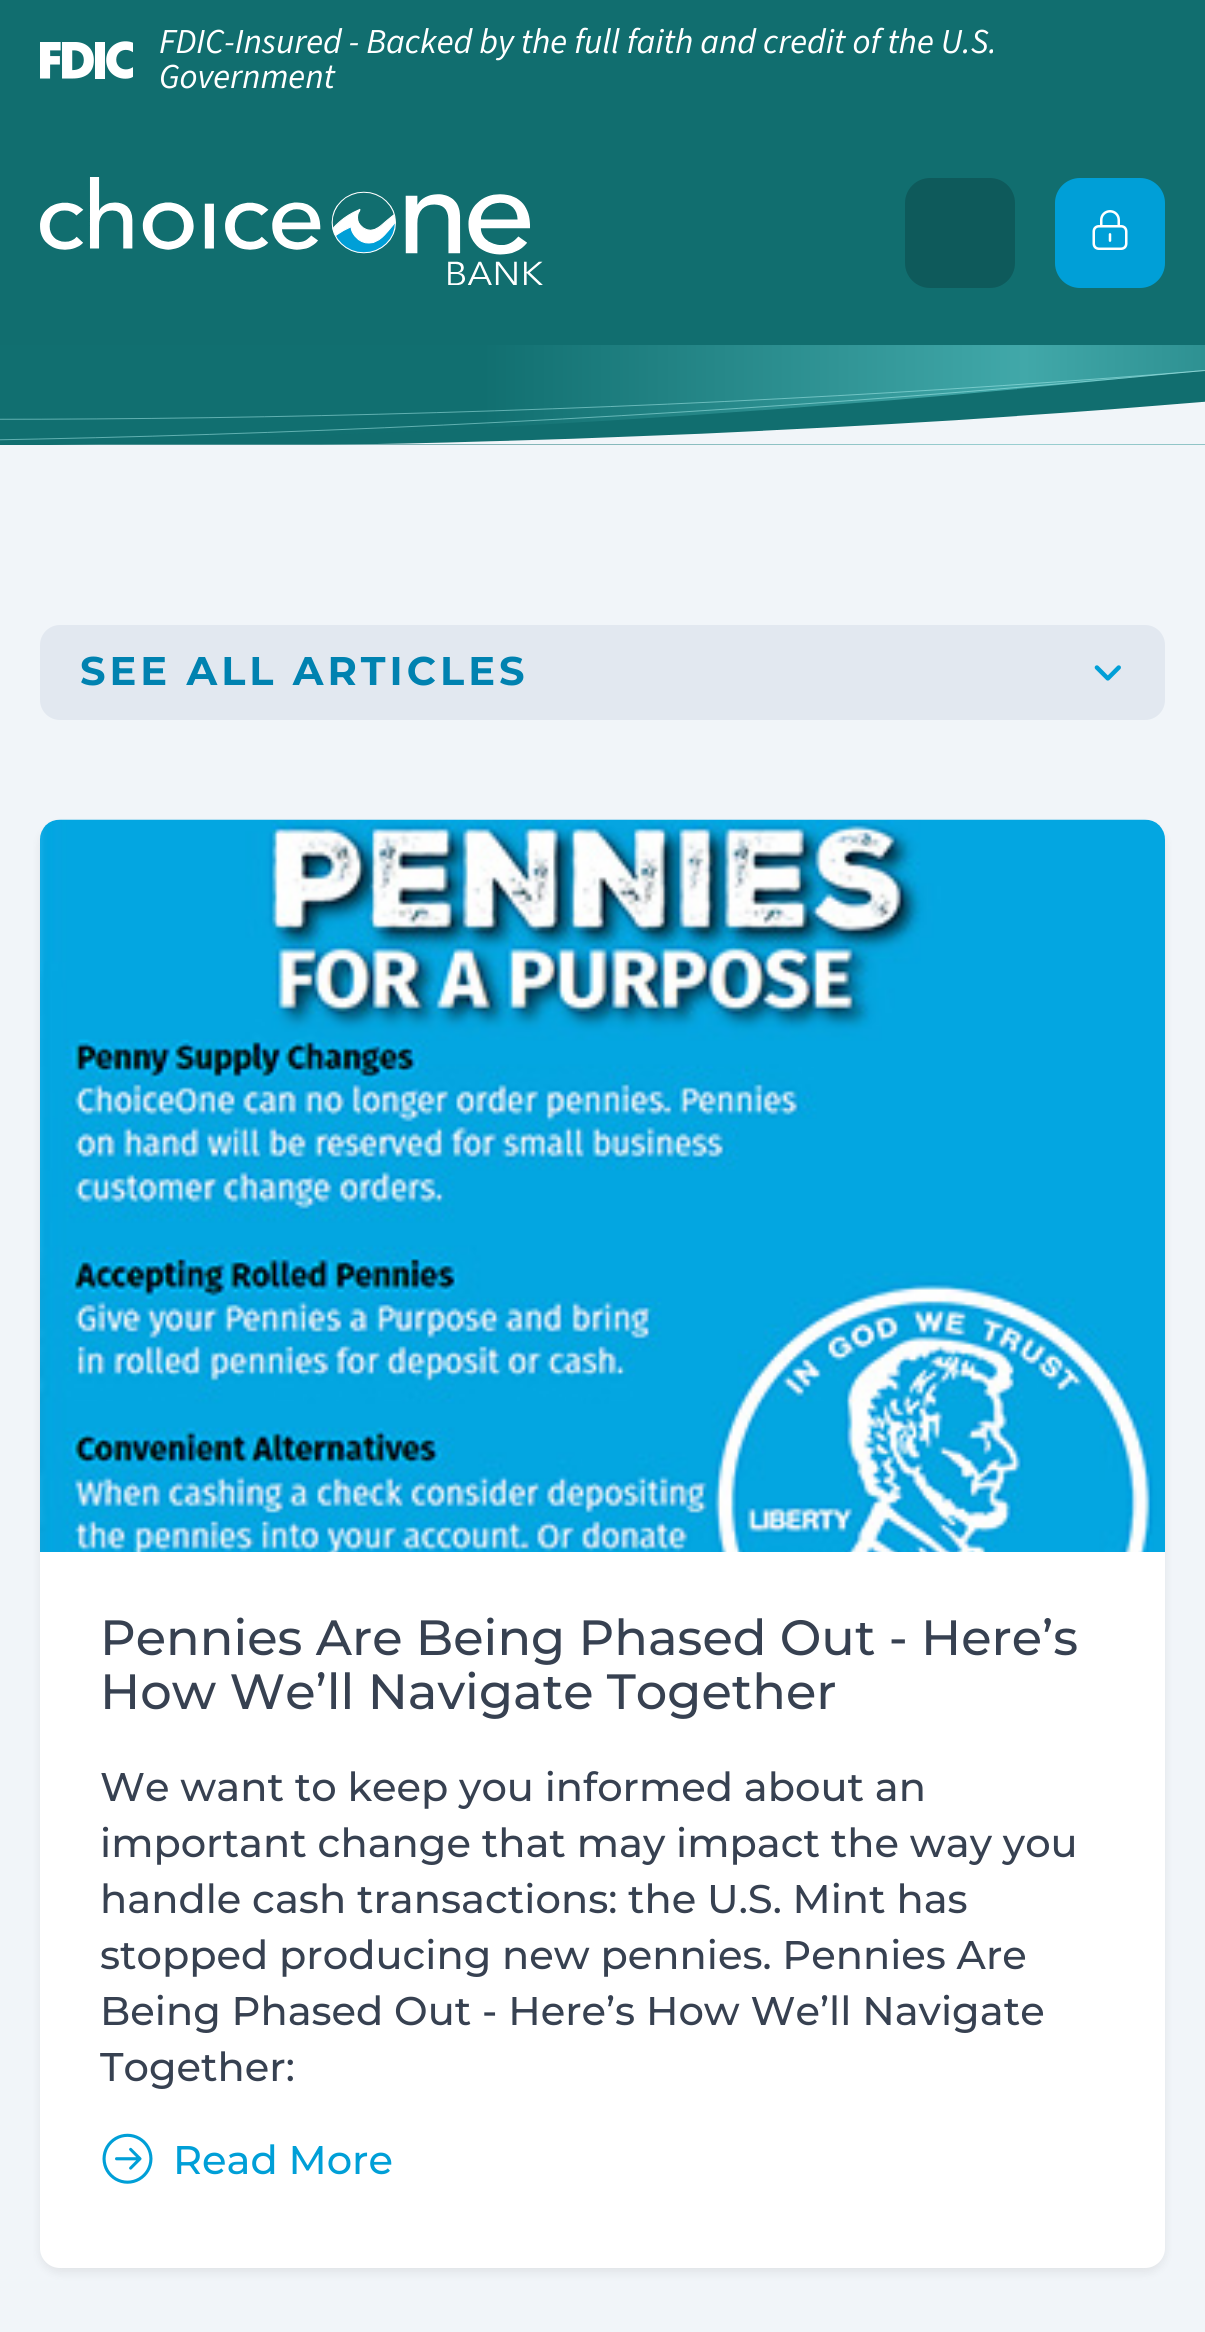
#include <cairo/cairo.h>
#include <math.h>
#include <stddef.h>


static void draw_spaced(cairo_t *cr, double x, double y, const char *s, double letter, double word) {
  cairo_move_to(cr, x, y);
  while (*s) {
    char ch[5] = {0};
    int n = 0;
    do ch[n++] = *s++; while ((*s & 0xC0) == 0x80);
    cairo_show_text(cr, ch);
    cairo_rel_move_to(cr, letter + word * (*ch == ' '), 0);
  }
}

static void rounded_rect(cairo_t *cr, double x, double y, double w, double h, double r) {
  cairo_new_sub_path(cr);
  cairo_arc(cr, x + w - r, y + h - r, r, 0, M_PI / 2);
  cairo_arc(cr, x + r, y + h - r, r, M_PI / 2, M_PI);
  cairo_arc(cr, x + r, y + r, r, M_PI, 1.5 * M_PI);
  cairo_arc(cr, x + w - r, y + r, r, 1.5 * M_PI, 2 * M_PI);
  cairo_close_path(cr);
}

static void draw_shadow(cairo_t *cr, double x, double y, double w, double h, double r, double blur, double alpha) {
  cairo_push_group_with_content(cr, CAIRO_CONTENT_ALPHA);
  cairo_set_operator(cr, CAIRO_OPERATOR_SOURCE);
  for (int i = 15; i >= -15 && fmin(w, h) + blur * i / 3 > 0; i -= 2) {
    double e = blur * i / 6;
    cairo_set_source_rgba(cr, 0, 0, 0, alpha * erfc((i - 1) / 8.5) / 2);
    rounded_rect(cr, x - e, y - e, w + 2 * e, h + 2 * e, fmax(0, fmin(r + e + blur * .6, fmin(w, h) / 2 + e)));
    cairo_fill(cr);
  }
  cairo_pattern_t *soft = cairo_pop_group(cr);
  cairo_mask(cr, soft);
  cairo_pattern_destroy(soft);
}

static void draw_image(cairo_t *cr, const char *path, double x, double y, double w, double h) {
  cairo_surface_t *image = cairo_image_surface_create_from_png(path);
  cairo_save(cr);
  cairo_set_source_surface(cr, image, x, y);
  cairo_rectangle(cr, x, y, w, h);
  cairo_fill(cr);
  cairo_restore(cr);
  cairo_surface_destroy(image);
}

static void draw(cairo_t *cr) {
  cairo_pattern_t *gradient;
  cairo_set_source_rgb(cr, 241 / 255.0, 245 / 255.0, 249 / 255.0);
  cairo_paint(cr);
  cairo_set_source_rgb(cr, 17 / 255.0, 110 / 255.0, 111 / 255.0);
  cairo_rectangle(cr, 0, 0, 1205, 345);
  cairo_fill(cr);
  draw_image(cr, "images/1.png", 40, 41, 93, 38);
  draw_image(cr, "images/2.png", 40, 177, 503, 108);
  cairo_set_source_rgb(cr, 14 / 255.0, 90 / 255.0, 91 / 255.0);
  rounded_rect(cr, 905, 178, 110, 110, 25);
  cairo_fill(cr);
  cairo_set_source_rgb(cr, 0, 159 / 255.0, 215 / 255.0);
  rounded_rect(cr, 1056.5, 179.5, 107, 107, 23.5);
  cairo_fill_preserve(cr);
  cairo_set_line_width(cr, 3);
  cairo_stroke(cr);
  draw_image(cr, "images/3.png", 1092, 210, 36, 40);
  gradient = cairo_pattern_create_linear(0, -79, 1205, -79);
  cairo_pattern_add_color_stop_rgba(gradient, 0.4, 17 / 255.0, 111 / 255.0, 112 / 255.0, 1);
  cairo_pattern_add_color_stop_rgba(gradient, 0.85, 65 / 255.0, 168 / 255.0, 169 / 255.0, 1);
  cairo_pattern_add_color_stop_rgba(gradient, 1, 46 / 255.0, 145 / 255.0, 146 / 255.0, 1);
  cairo_set_source(cr, gradient);
  cairo_pattern_destroy(gradient);
  cairo_rectangle(cr, 0, 345, 1205, 100);
  cairo_fill(cr);
  draw_image(cr, "images/4.png", 0, 370, 1205, 75);
  cairo_set_source_rgb(cr, 226 / 255.0, 232 / 255.0, 240 / 255.0);
  rounded_rect(cr, 40, 625, 1125, 95, 20);
  cairo_fill(cr);
  draw_image(cr, "images/5.png", 1094, 665, 27, 16);
  cairo_set_source_rgb(cr, 0, 0, 0);
  draw_shadow(cr, 40, 825, 1125, 1448, 20, 5, 0.07);
  cairo_set_source_rgb(cr, 1, 1, 1);
  rounded_rect(cr, 40, 820, 1125, 1448, 20);
  cairo_fill(cr);
  draw_image(cr, "images/6.png", 40, 819, 1125, 733);
  draw_image(cr, "images/7.png", 102, 2133, 51, 51);
  cairo_select_font_face(cr, "Source Sans 3", CAIRO_FONT_SLANT_ITALIC, CAIRO_FONT_WEIGHT_NORMAL);
  cairo_set_font_size(cr, 35);
  cairo_move_to(cr, 159, 53);
  cairo_show_text(cr, "FDIC-Insured - Backed by the full faith and credit of the U.S.");
  cairo_move_to(cr, 159, 88);
  cairo_show_text(cr, "Government");
  cairo_select_font_face(cr, "Montserrat", CAIRO_FONT_SLANT_NORMAL, CAIRO_FONT_WEIGHT_BOLD);
  cairo_set_font_size(cr, 40);
  cairo_set_source_rgb(cr, 0, 130 / 255.0, 176 / 255.0);
  draw_spaced(cr, 80, 685, "SEE ALL ARTICLES", 4, 0);
  cairo_select_font_face(cr, "Montserrat Medium", CAIRO_FONT_SLANT_NORMAL, CAIRO_FONT_WEIGHT_NORMAL);
  cairo_set_font_size(cr, 49.5);
  cairo_set_source_rgb(cr, 55 / 255.0, 65 / 255.0, 81 / 255.0);
  cairo_move_to(cr, 100, 1655);
  cairo_show_text(cr, "Pennies Are Being Phased Out - Here’s");
  cairo_move_to(cr, 100, 1709);
  cairo_show_text(cr, "How We’ll Navigate Together");
  cairo_set_font_size(cr, 40);
  cairo_move_to(cr, 100, 1801);
  cairo_show_text(cr, "We want to keep you informed about an");
  cairo_move_to(cr, 100, 1857);
  cairo_show_text(cr, "important change that may impact the way you");
  cairo_move_to(cr, 100, 1913);
  cairo_show_text(cr, "handle cash transactions: the U.S. Mint has");
  cairo_move_to(cr, 100, 1969);
  cairo_show_text(cr, "stopped producing new pennies. Pennies Are");
  cairo_move_to(cr, 100, 2025);
  cairo_show_text(cr, "Being Phased Out - Here’s How We’ll Navigate");
  cairo_move_to(cr, 100, 2081);
  cairo_show_text(cr, "Together:");
  cairo_set_source_rgb(cr, 0, 159 / 255.0, 215 / 255.0);
  cairo_move_to(cr, 173, 2174);
  cairo_show_text(cr, "Read More");
}

int main(void) {
  cairo_surface_t *surface = cairo_image_surface_create(CAIRO_FORMAT_RGB24, 1205, 2332);
  cairo_t *cr = cairo_create(surface);
  cairo_font_options_t *options = cairo_font_options_create();
  cairo_font_options_set_hint_metrics(options, CAIRO_HINT_METRICS_OFF);
  cairo_font_options_set_hint_style(options, CAIRO_HINT_STYLE_NONE);
  cairo_set_font_options(cr, options);
  cairo_set_miter_limit(cr, 4);
  draw(cr);
  cairo_surface_write_to_png(surface, "out.png");
  cairo_font_options_destroy(options);
  cairo_destroy(cr);
  cairo_surface_destroy(surface);
  return 0;
}
